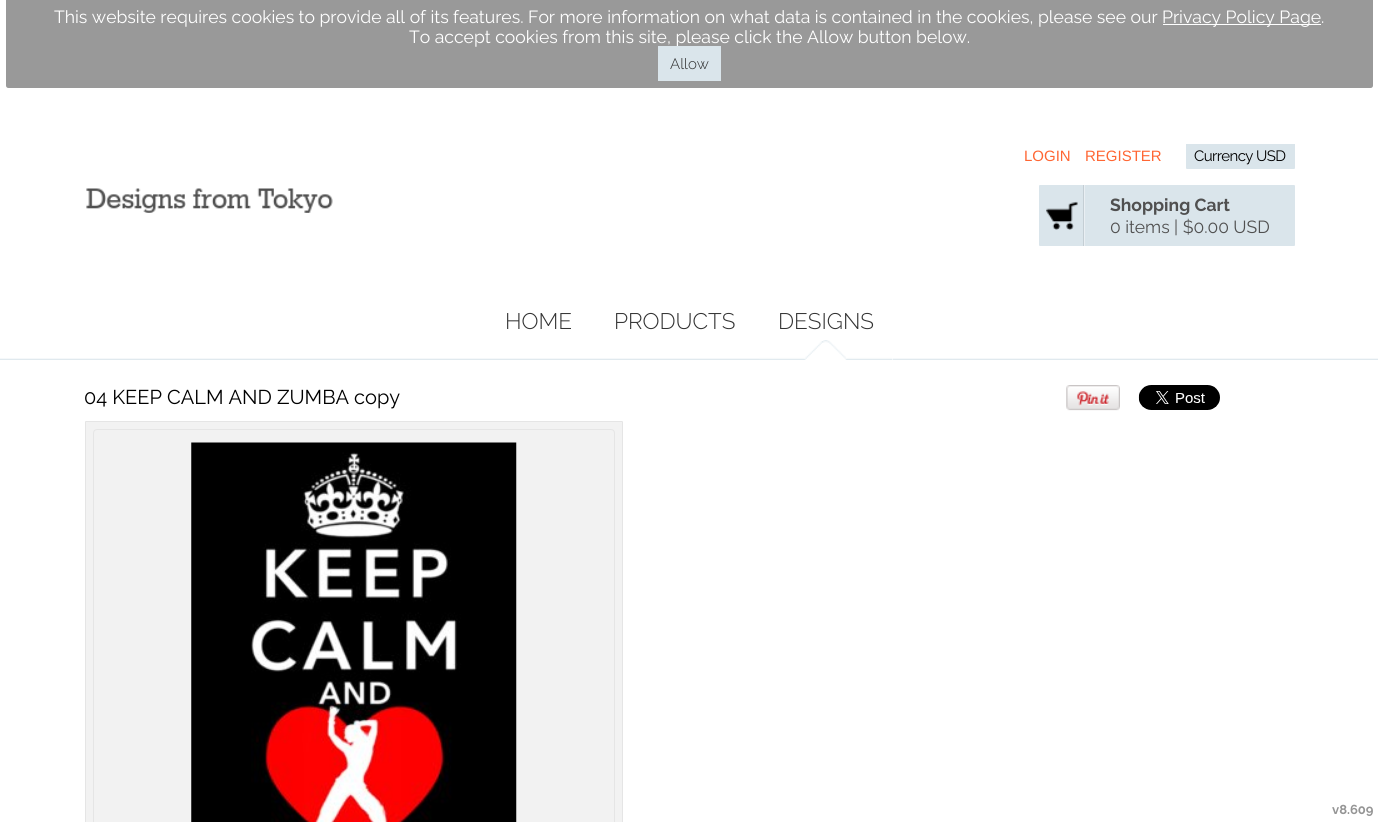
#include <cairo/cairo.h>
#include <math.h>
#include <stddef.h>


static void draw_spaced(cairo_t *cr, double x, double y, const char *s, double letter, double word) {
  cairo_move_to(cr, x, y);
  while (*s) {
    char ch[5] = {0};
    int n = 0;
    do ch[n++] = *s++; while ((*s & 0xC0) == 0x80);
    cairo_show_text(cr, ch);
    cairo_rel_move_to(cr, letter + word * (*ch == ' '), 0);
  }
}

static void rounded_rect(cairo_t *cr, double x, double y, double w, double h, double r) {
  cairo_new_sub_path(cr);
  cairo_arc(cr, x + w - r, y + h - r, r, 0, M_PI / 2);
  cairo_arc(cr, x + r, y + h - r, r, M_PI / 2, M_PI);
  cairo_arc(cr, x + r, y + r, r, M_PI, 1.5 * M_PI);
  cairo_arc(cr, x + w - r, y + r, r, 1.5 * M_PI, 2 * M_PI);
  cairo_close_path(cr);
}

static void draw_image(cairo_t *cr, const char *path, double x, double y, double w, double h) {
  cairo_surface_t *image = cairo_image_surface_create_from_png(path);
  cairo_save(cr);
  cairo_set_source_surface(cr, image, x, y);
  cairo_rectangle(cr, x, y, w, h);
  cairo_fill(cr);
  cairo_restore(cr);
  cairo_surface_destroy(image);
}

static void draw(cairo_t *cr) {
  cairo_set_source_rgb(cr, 1, 1, 1);
  cairo_paint(cr);
  cairo_set_source_rgb(cr, 153 / 255.0, 153 / 255.0, 153 / 255.0);
  cairo_new_path(cr);
  cairo_move_to(cr, 6, 0);
  cairo_line_to(cr, 1373, 0);
  cairo_line_to(cr, 1373, 85.5);
  cairo_curve_to(cr, 1373, 87, 1372, 88, 1370.5, 88);
  cairo_line_to(cr, 8.5, 88);
  cairo_curve_to(cr, 7, 88, 6, 87, 6, 85.5);
  cairo_close_path(cr);
  cairo_fill(cr);
  cairo_set_source_rgb(cr, 1, 1, 1);
  cairo_rectangle(cr, 1163, 24, 158, 1);
  cairo_fill(cr);
  cairo_set_source_rgb(cr, 218 / 255.0, 229 / 255.0, 235 / 255.0);
  cairo_new_path(cr);
  cairo_move_to(cr, 1186, 144);
  cairo_line_to(cr, 1295, 144);
  cairo_line_to(cr, 1295, 168);
  cairo_curve_to(cr, 1295, 168.5, 1294.5, 169, 1294, 169);
  cairo_line_to(cr, 1187, 169);
  cairo_curve_to(cr, 1186.5, 169, 1186, 168.5, 1186, 168);
  cairo_close_path(cr);
  cairo_fill(cr);
  draw_image(cr, "images/1.png", 86, 188, 247, 25);
  rounded_rect(cr, 1039, 185, 256, 61, 1);
  cairo_fill(cr);
  draw_image(cr, "images/2.png", 1046, 201, 32, 29);
  cairo_set_source_rgb(cr, 196 / 255.0, 206 / 255.0, 212 / 255.0);
  cairo_rectangle(cr, 1083, 185, 1, 61);
  cairo_fill(cr);
  cairo_set_source_rgb(cr, 233 / 255.0, 239 / 255.0, 243 / 255.0);
  cairo_rectangle(cr, 1084, 185, 1, 61);
  cairo_fill(cr);
  draw_image(cr, "images/3.png", 0, 358, 1378, 2);
  cairo_set_source_rgb(cr, 1, 1, 1);
  cairo_rectangle(cr, 759, 358, 134, 2);
  cairo_fill(cr);
  draw_image(cr, "images/4.png", 759, 340, 134, 20);
  draw_image(cr, "images/5.png", 1066, 385, 54, 26);
  draw_image(cr, "images/6.png", 1138, 385, 82, 25);
  cairo_set_source_rgb(cr, 242 / 255.0, 242 / 255.0, 242 / 255.0);
  rounded_rect(cr, 85.5, 421.5, 537, 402, 0.5);
  cairo_fill_preserve(cr);
  cairo_set_source_rgb(cr, 229 / 255.0, 229 / 255.0, 229 / 255.0);
  cairo_set_line_width(cr, 1);
  cairo_stroke(cr);
  rounded_rect(cr, 93.5, 429.5, 521, 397, 3.5);
  cairo_stroke(cr);
  draw_image(cr, "images/7.png", 191, 442, 326, 380);
  cairo_select_font_face(cr, "Raleway", CAIRO_FONT_SLANT_NORMAL, CAIRO_FONT_WEIGHT_NORMAL);
  cairo_set_font_size(cr, 17.6);
  cairo_set_source_rgb(cr, 1, 1, 1);
  cairo_move_to(cr, 54, 23);
  cairo_show_text(cr, "This website requires cookies to provide all of its features. For more information on what data is contained in the cookies, please see our");
  cairo_move_to(cr, 1162, 23);
  cairo_show_text(cr, "Privacy Policy Page.");
  cairo_move_to(cr, 409, 43);
  cairo_show_text(cr, "To accept cookies from this site, please click the Allow button below.");
  cairo_set_source_rgb(cr, 218 / 255.0, 229 / 255.0, 235 / 255.0);
  cairo_rectangle(cr, 658, 46, 63, 35);
  cairo_fill(cr);
  cairo_select_font_face(cr, "Raleway Light", CAIRO_FONT_SLANT_NORMAL, CAIRO_FONT_WEIGHT_NORMAL);
  cairo_set_font_size(cr, 15);
  cairo_set_source_rgb(cr, 43 / 255.0, 43 / 255.0, 43 / 255.0);
  cairo_move_to(cr, 670, 69);
  cairo_show_text(cr, "Allow");
  cairo_select_font_face(cr, "Liberation Sans", CAIRO_FONT_SLANT_NORMAL, CAIRO_FONT_WEIGHT_NORMAL);
  cairo_set_source_rgb(cr, 1, 102 / 255.0, 51 / 255.0);
  cairo_move_to(cr, 1024, 161);
  cairo_show_text(cr, "LOGIN");
  cairo_move_to(cr, 1085, 161);
  cairo_show_text(cr, "REGISTER");
  cairo_select_font_face(cr, "Raleway", CAIRO_FONT_SLANT_NORMAL, CAIRO_FONT_WEIGHT_NORMAL);
  cairo_set_source_rgb(cr, 0, 0, 0);
  draw_spaced(cr, 1194, 161, "Currency USD", -0.6, 0);
  cairo_select_font_face(cr, "Raleway", CAIRO_FONT_SLANT_NORMAL, CAIRO_FONT_WEIGHT_BOLD);
  cairo_set_font_size(cr, 17.5);
  cairo_set_source_rgb(cr, 80 / 255.0, 80 / 255.0, 80 / 255.0);
  cairo_move_to(cr, 1110, 211);
  cairo_show_text(cr, "Shopping Cart");
  cairo_select_font_face(cr, "Raleway", CAIRO_FONT_SLANT_NORMAL, CAIRO_FONT_WEIGHT_NORMAL);
  cairo_move_to(cr, 1110, 233);
  cairo_show_text(cr, "0 items | $0.00 USD");
  cairo_select_font_face(cr, "Raleway Light", CAIRO_FONT_SLANT_NORMAL, CAIRO_FONT_WEIGHT_NORMAL);
  cairo_set_font_size(cr, 22.5);
  cairo_set_source_rgb(cr, 51 / 255.0, 51 / 255.0, 51 / 255.0);
  cairo_move_to(cr, 505, 329);
  cairo_show_text(cr, "HOME");
  cairo_move_to(cr, 614, 329);
  cairo_show_text(cr, "PRODUCTS");
  cairo_move_to(cr, 778, 329);
  cairo_show_text(cr, "DESIGNS");
  cairo_select_font_face(cr, "Raleway", CAIRO_FONT_SLANT_NORMAL, CAIRO_FONT_WEIGHT_NORMAL);
  cairo_set_font_size(cr, 20);
  cairo_set_source_rgb(cr, 0, 0, 0);
  cairo_move_to(cr, 84, 404);
  cairo_show_text(cr, "04 KEEP CALM AND ZUMBA copy");
  cairo_select_font_face(cr, "Raleway", CAIRO_FONT_SLANT_NORMAL, CAIRO_FONT_WEIGHT_BOLD);
  cairo_set_font_size(cr, 13);
  cairo_set_source_rgb(cr, 149 / 255.0, 149 / 255.0, 149 / 255.0);
  cairo_move_to(cr, 1332, 814);
  cairo_show_text(cr, "v8.609");
}

int main(void) {
  cairo_surface_t *surface = cairo_image_surface_create(CAIRO_FORMAT_RGB24, 1378, 822);
  cairo_t *cr = cairo_create(surface);
  cairo_font_options_t *options = cairo_font_options_create();
  cairo_font_options_set_hint_metrics(options, CAIRO_HINT_METRICS_OFF);
  cairo_font_options_set_hint_style(options, CAIRO_HINT_STYLE_NONE);
  cairo_set_font_options(cr, options);
  cairo_set_miter_limit(cr, 4);
  draw(cr);
  cairo_surface_write_to_png(surface, "out.png");
  cairo_font_options_destroy(options);
  cairo_destroy(cr);
  cairo_surface_destroy(surface);
  return 0;
}
